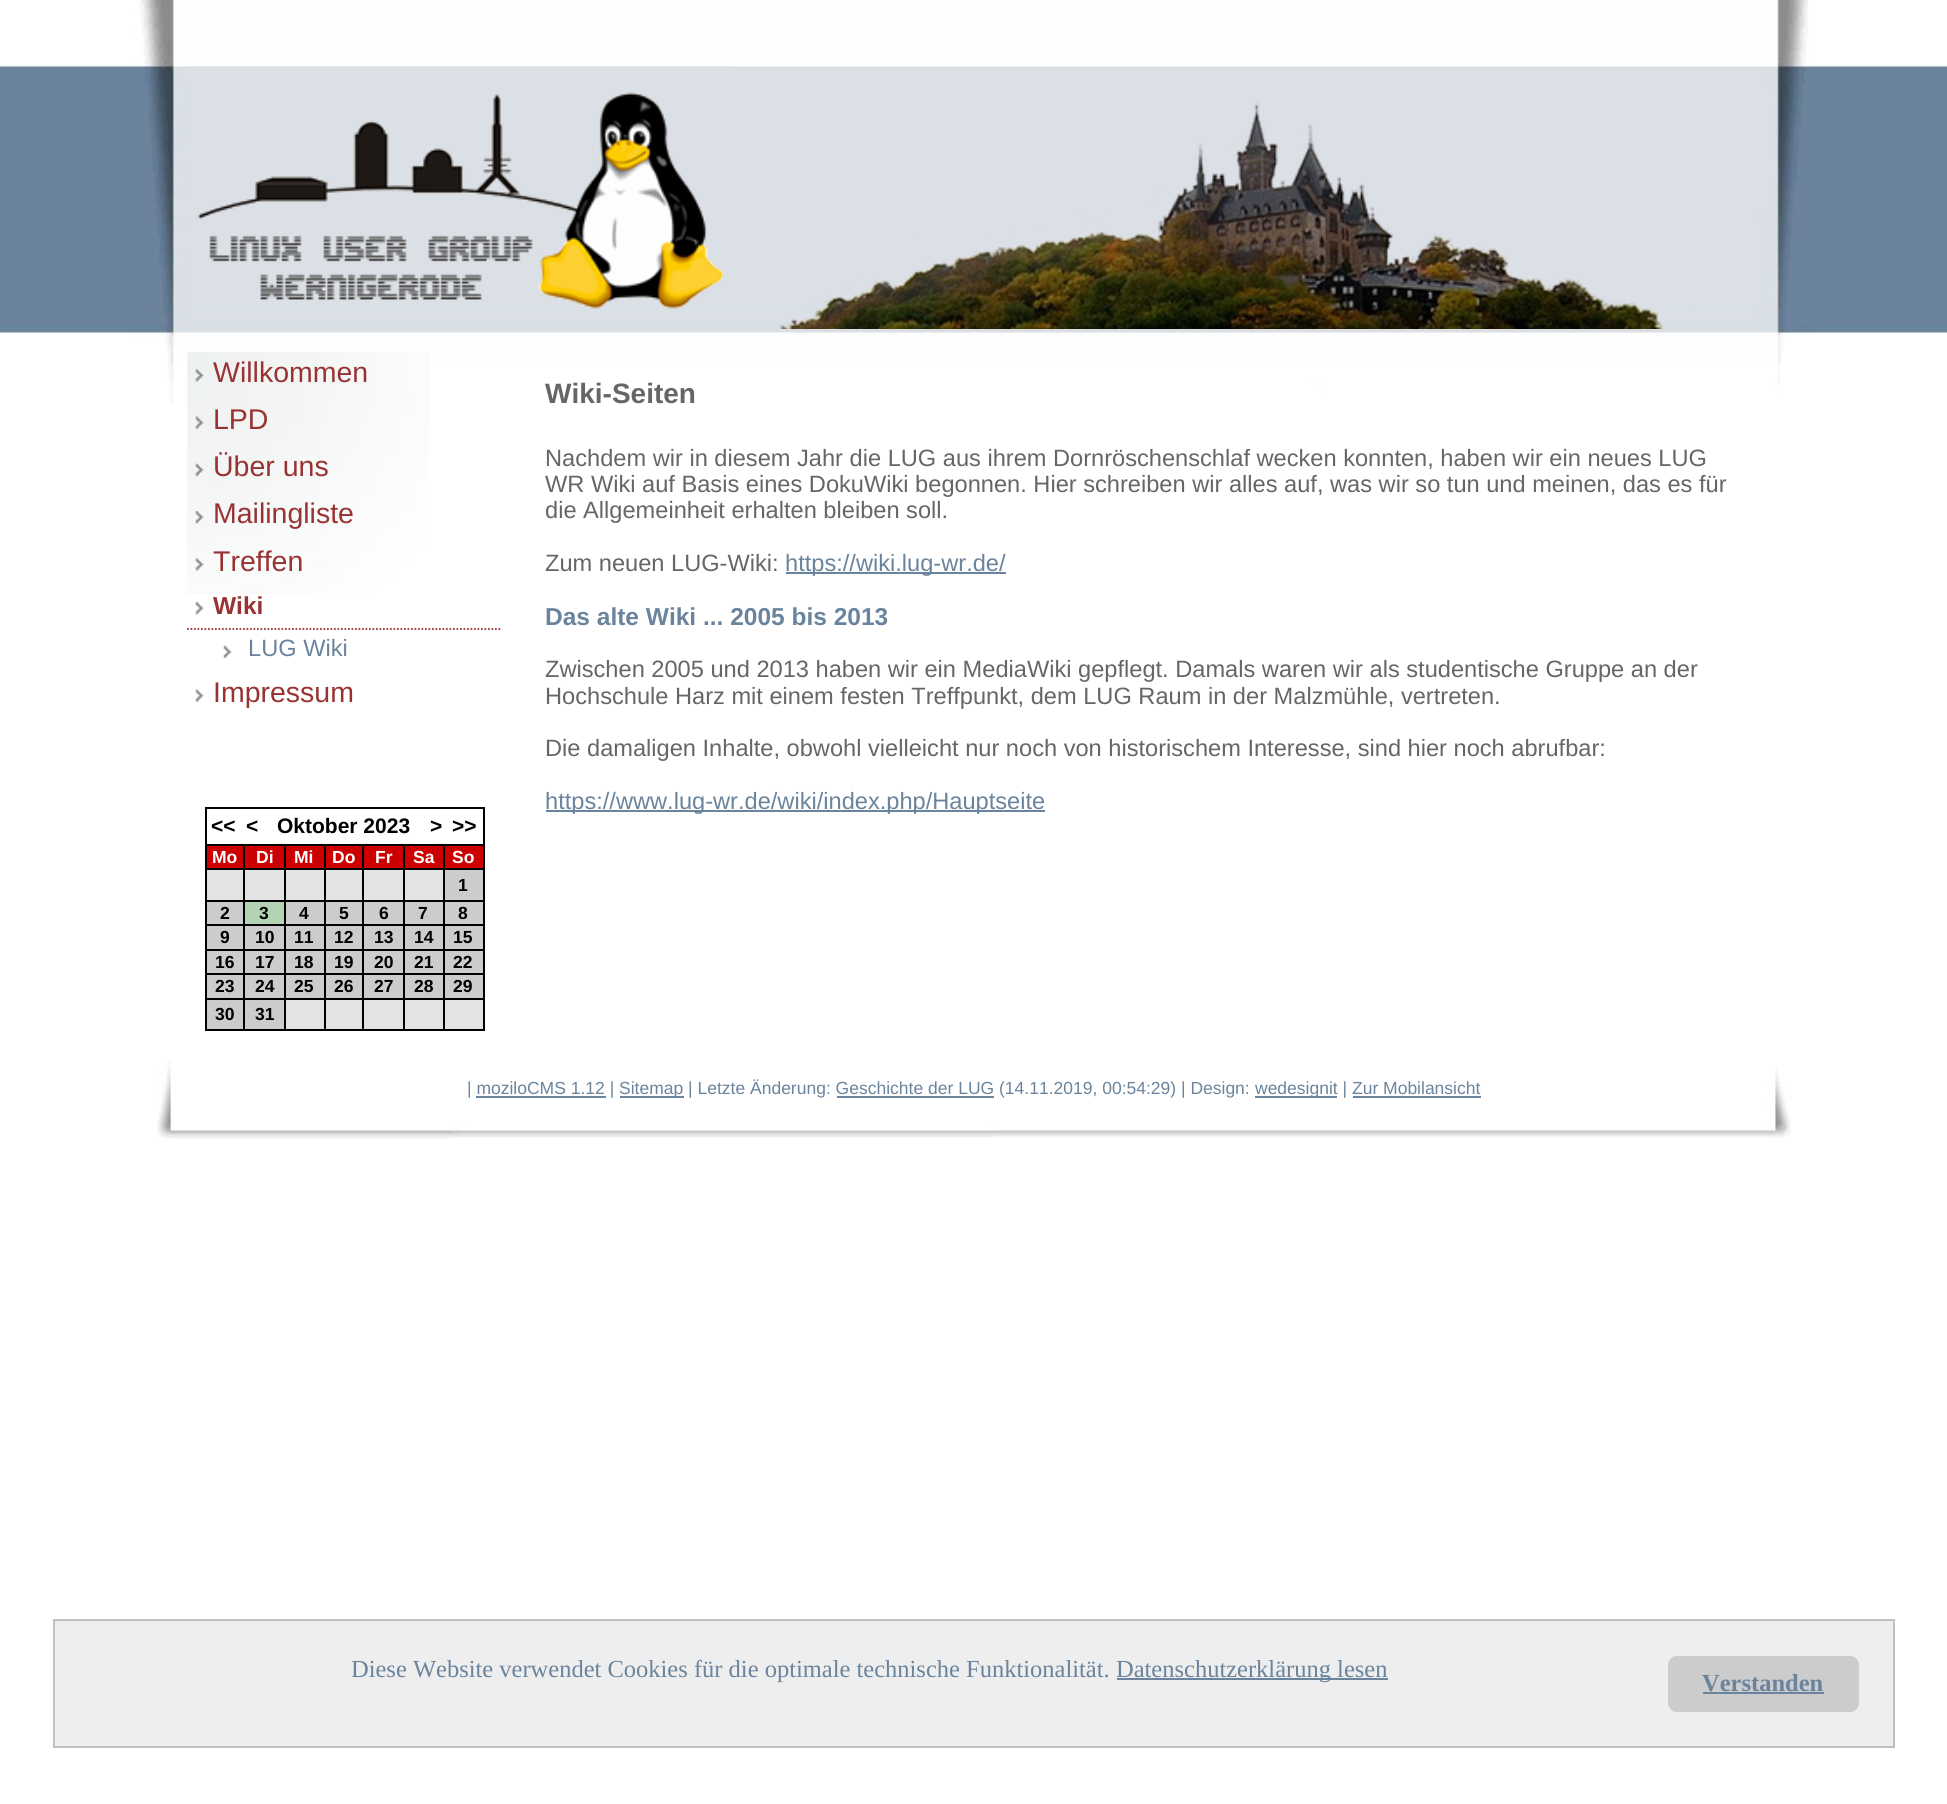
#include <cairo/cairo.h>
#include <math.h>
#include <stddef.h>


static void rounded_rect(cairo_t *cr, double x, double y, double w, double h, double r) {
  cairo_new_sub_path(cr);
  cairo_arc(cr, x + w - r, y + h - r, r, 0, M_PI / 2);
  cairo_arc(cr, x + r, y + h - r, r, M_PI / 2, M_PI);
  cairo_arc(cr, x + r, y + r, r, M_PI, 1.5 * M_PI);
  cairo_arc(cr, x + w - r, y + r, r, 1.5 * M_PI, 2 * M_PI);
  cairo_close_path(cr);
}

static void draw_image(cairo_t *cr, const char *path, double x, double y, double w, double h) {
  cairo_surface_t *image = cairo_image_surface_create_from_png(path);
  cairo_save(cr);
  cairo_set_source_surface(cr, image, x, y);
  cairo_rectangle(cr, x, y, w, h);
  cairo_fill(cr);
  cairo_restore(cr);
  cairo_surface_destroy(image);
}

static void draw(cairo_t *cr) {
  cairo_set_source_rgb(cr, 1, 1, 1);
  cairo_paint(cr);
  draw_image(cr, "images/1.png", 0, 65, 1947, 269);
  draw_image(cr, "images/2.png", 135, 0, 1680, 403);
  draw_image(cr, "images/3.png", 187, 66, 546, 243);
  draw_image(cr, "images/4.png", 778, 102, 916, 227);
  draw_image(cr, "images/5.png", 187, 352, 243, 242);
  draw_image(cr, "images/6.png", 195, 369, 9, 13);
  draw_image(cr, "images/7.png", 195, 416, 9, 13);
  draw_image(cr, "images/8.png", 195, 463, 9, 13);
  draw_image(cr, "images/9.png", 195, 511, 9, 13);
  draw_image(cr, "images/10.png", 195, 558, 9, 13);
  draw_image(cr, "images/11.png", 195, 602, 9, 13);
  cairo_new_path(cr);
  cairo_move_to(cr, 187, 629);
  cairo_line_to(cr, 502, 629);
  cairo_set_source_rgb(cr, 153 / 255.0, 51 / 255.0, 51 / 255.0);
  cairo_set_line_width(cr, 1.8);
  cairo_set_dash(cr, (double[]){1.75, 1.75}, 2, 0);
  cairo_stroke(cr);
  draw_image(cr, "images/12.png", 223, 645, 9, 13);
  draw_image(cr, "images/13.png", 195, 689, 9, 13);
  cairo_set_source_rgb(cr, 0, 0, 0);
  cairo_rectangle(cr, 205, 807, 280, 2);
  cairo_fill(cr);
  cairo_rectangle(cr, 483, 807, 2, 37);
  cairo_fill(cr);
  cairo_rectangle(cr, 205, 807, 2, 37);
  cairo_fill(cr);
  cairo_set_source_rgb(cr, 204 / 255.0, 0, 0);
  cairo_rectangle(cr, 207, 846, 36, 22);
  cairo_fill(cr);
  cairo_set_source_rgb(cr, 0, 0, 0);
  cairo_rectangle(cr, 443, 844, 42, 2);
  cairo_fill(cr);
  cairo_rectangle(cr, 443, 868, 42, 2);
  cairo_fill(cr);
  cairo_rectangle(cr, 443, 900, 42, 2);
  cairo_fill(cr);
  cairo_rectangle(cr, 443, 924, 42, 2);
  cairo_fill(cr);
  cairo_rectangle(cr, 443, 949, 42, 2);
  cairo_fill(cr);
  cairo_rectangle(cr, 443, 973, 42, 2);
  cairo_fill(cr);
  cairo_rectangle(cr, 443, 998, 42, 2);
  cairo_fill(cr);
  cairo_rectangle(cr, 483, 998, 2, 33);
  cairo_fill(cr);
  cairo_rectangle(cr, 443, 1029, 42, 2);
  cairo_fill(cr);
  cairo_rectangle(cr, 443, 998, 2, 33);
  cairo_fill(cr);
  cairo_rectangle(cr, 403, 998, 42, 2);
  cairo_fill(cr);
  cairo_rectangle(cr, 443, 973, 2, 26);
  cairo_fill(cr);
  cairo_rectangle(cr, 403, 973, 42, 2);
  cairo_fill(cr);
  cairo_rectangle(cr, 443, 949, 2, 26);
  cairo_fill(cr);
  cairo_rectangle(cr, 403, 949, 42, 2);
  cairo_fill(cr);
  cairo_rectangle(cr, 443, 924, 2, 26);
  cairo_fill(cr);
  cairo_rectangle(cr, 403, 924, 42, 2);
  cairo_fill(cr);
  cairo_rectangle(cr, 443, 900, 2, 26);
  cairo_fill(cr);
  cairo_rectangle(cr, 403, 900, 42, 2);
  cairo_fill(cr);
  cairo_rectangle(cr, 443, 868, 2, 33);
  cairo_fill(cr);
  cairo_rectangle(cr, 403, 868, 42, 2);
  cairo_fill(cr);
  cairo_rectangle(cr, 443, 844, 2, 26);
  cairo_fill(cr);
  cairo_rectangle(cr, 403, 844, 42, 2);
  cairo_fill(cr);
  cairo_rectangle(cr, 403, 1029, 42, 2);
  cairo_fill(cr);
  cairo_rectangle(cr, 403, 998, 2, 33);
  cairo_fill(cr);
  cairo_rectangle(cr, 362, 998, 42, 2);
  cairo_fill(cr);
  cairo_rectangle(cr, 403, 973, 2, 26);
  cairo_fill(cr);
  cairo_rectangle(cr, 362, 973, 42, 2);
  cairo_fill(cr);
  cairo_rectangle(cr, 403, 949, 2, 26);
  cairo_fill(cr);
  cairo_rectangle(cr, 362, 949, 42, 2);
  cairo_fill(cr);
  cairo_rectangle(cr, 403, 924, 2, 26);
  cairo_fill(cr);
  cairo_rectangle(cr, 362, 924, 42, 2);
  cairo_fill(cr);
  cairo_rectangle(cr, 403, 900, 2, 26);
  cairo_fill(cr);
  cairo_rectangle(cr, 362, 900, 42, 2);
  cairo_fill(cr);
  cairo_rectangle(cr, 403, 868, 2, 33);
  cairo_fill(cr);
  cairo_rectangle(cr, 362, 868, 42, 2);
  cairo_fill(cr);
  cairo_rectangle(cr, 403, 844, 2, 26);
  cairo_fill(cr);
  cairo_rectangle(cr, 362, 844, 42, 2);
  cairo_fill(cr);
  cairo_rectangle(cr, 362, 1029, 42, 2);
  cairo_fill(cr);
  cairo_rectangle(cr, 362, 998, 2, 33);
  cairo_fill(cr);
  cairo_rectangle(cr, 324, 998, 40, 2);
  cairo_fill(cr);
  cairo_rectangle(cr, 362, 973, 2, 26);
  cairo_fill(cr);
  cairo_rectangle(cr, 324, 973, 40, 2);
  cairo_fill(cr);
  cairo_rectangle(cr, 362, 949, 2, 26);
  cairo_fill(cr);
  cairo_rectangle(cr, 324, 949, 40, 2);
  cairo_fill(cr);
  cairo_rectangle(cr, 362, 924, 2, 26);
  cairo_fill(cr);
  cairo_rectangle(cr, 324, 924, 40, 2);
  cairo_fill(cr);
  cairo_rectangle(cr, 362, 900, 2, 26);
  cairo_fill(cr);
  cairo_rectangle(cr, 324, 900, 40, 2);
  cairo_fill(cr);
  cairo_rectangle(cr, 362, 868, 2, 33);
  cairo_fill(cr);
  cairo_rectangle(cr, 324, 868, 40, 2);
  cairo_fill(cr);
  cairo_rectangle(cr, 362, 844, 2, 26);
  cairo_fill(cr);
  cairo_rectangle(cr, 324, 844, 40, 2);
  cairo_fill(cr);
  cairo_rectangle(cr, 324, 1029, 40, 2);
  cairo_fill(cr);
  cairo_rectangle(cr, 324, 998, 2, 33);
  cairo_fill(cr);
  cairo_rectangle(cr, 284, 998, 42, 2);
  cairo_fill(cr);
  cairo_rectangle(cr, 324, 973, 2, 26);
  cairo_fill(cr);
  cairo_rectangle(cr, 284, 973, 42, 2);
  cairo_fill(cr);
  cairo_rectangle(cr, 324, 949, 2, 26);
  cairo_fill(cr);
  cairo_rectangle(cr, 284, 949, 42, 2);
  cairo_fill(cr);
  cairo_rectangle(cr, 324, 924, 2, 26);
  cairo_fill(cr);
  cairo_rectangle(cr, 284, 924, 42, 2);
  cairo_fill(cr);
  cairo_rectangle(cr, 324, 900, 2, 26);
  cairo_fill(cr);
  cairo_rectangle(cr, 284, 900, 42, 2);
  cairo_fill(cr);
  cairo_rectangle(cr, 324, 868, 2, 33);
  cairo_fill(cr);
  cairo_rectangle(cr, 284, 868, 42, 2);
  cairo_fill(cr);
  cairo_rectangle(cr, 324, 844, 2, 26);
  cairo_fill(cr);
  cairo_rectangle(cr, 284, 844, 42, 2);
  cairo_fill(cr);
  cairo_rectangle(cr, 284, 1029, 42, 2);
  cairo_fill(cr);
  cairo_rectangle(cr, 284, 998, 2, 33);
  cairo_fill(cr);
  cairo_rectangle(cr, 243, 998, 42, 2);
  cairo_fill(cr);
  cairo_rectangle(cr, 284, 973, 2, 26);
  cairo_fill(cr);
  cairo_rectangle(cr, 243, 973, 42, 2);
  cairo_fill(cr);
  cairo_rectangle(cr, 284, 949, 2, 26);
  cairo_fill(cr);
  cairo_rectangle(cr, 243, 949, 42, 2);
  cairo_fill(cr);
  cairo_rectangle(cr, 284, 924, 2, 26);
  cairo_fill(cr);
  cairo_rectangle(cr, 243, 924, 42, 2);
  cairo_fill(cr);
  cairo_rectangle(cr, 284, 900, 2, 26);
  cairo_fill(cr);
  cairo_rectangle(cr, 243, 900, 42, 2);
  cairo_fill(cr);
  cairo_rectangle(cr, 284, 868, 2, 33);
  cairo_fill(cr);
  cairo_rectangle(cr, 243, 868, 42, 2);
  cairo_fill(cr);
  cairo_rectangle(cr, 284, 844, 2, 26);
  cairo_fill(cr);
  cairo_rectangle(cr, 243, 844, 42, 2);
  cairo_fill(cr);
  cairo_rectangle(cr, 243, 1029, 42, 2);
  cairo_fill(cr);
  cairo_rectangle(cr, 243, 998, 2, 33);
  cairo_fill(cr);
  cairo_rectangle(cr, 205, 998, 40, 2);
  cairo_fill(cr);
  cairo_rectangle(cr, 243, 973, 2, 26);
  cairo_fill(cr);
  cairo_rectangle(cr, 205, 973, 40, 2);
  cairo_fill(cr);
  cairo_rectangle(cr, 243, 949, 2, 26);
  cairo_fill(cr);
  cairo_rectangle(cr, 205, 949, 40, 2);
  cairo_fill(cr);
  cairo_rectangle(cr, 243, 924, 2, 26);
  cairo_fill(cr);
  cairo_rectangle(cr, 205, 924, 40, 2);
  cairo_fill(cr);
  cairo_rectangle(cr, 243, 900, 2, 26);
  cairo_fill(cr);
  cairo_rectangle(cr, 205, 900, 40, 2);
  cairo_fill(cr);
  cairo_rectangle(cr, 243, 868, 2, 33);
  cairo_fill(cr);
  cairo_rectangle(cr, 205, 868, 40, 2);
  cairo_fill(cr);
  cairo_rectangle(cr, 243, 844, 2, 26);
  cairo_fill(cr);
  cairo_rectangle(cr, 205, 844, 40, 2);
  cairo_fill(cr);
  cairo_rectangle(cr, 205, 1029, 40, 2);
  cairo_fill(cr);
  cairo_rectangle(cr, 205, 998, 2, 33);
  cairo_fill(cr);
  cairo_rectangle(cr, 205, 973, 2, 26);
  cairo_fill(cr);
  cairo_rectangle(cr, 205, 949, 2, 26);
  cairo_fill(cr);
  cairo_rectangle(cr, 205, 924, 2, 26);
  cairo_fill(cr);
  cairo_rectangle(cr, 205, 900, 2, 26);
  cairo_fill(cr);
  cairo_rectangle(cr, 205, 868, 2, 33);
  cairo_fill(cr);
  cairo_rectangle(cr, 205, 844, 2, 26);
  cairo_fill(cr);
  cairo_set_source_rgb(cr, 204 / 255.0, 0, 0);
  cairo_rectangle(cr, 245, 846, 39, 22);
  cairo_fill(cr);
  cairo_rectangle(cr, 286, 846, 38, 22);
  cairo_fill(cr);
  cairo_rectangle(cr, 326, 846, 36, 22);
  cairo_fill(cr);
  cairo_rectangle(cr, 364, 846, 39, 22);
  cairo_fill(cr);
  cairo_rectangle(cr, 405, 846, 38, 22);
  cairo_fill(cr);
  cairo_rectangle(cr, 445, 846, 38, 22);
  cairo_fill(cr);
  cairo_set_source_rgb(cr, 0, 0, 0);
  cairo_rectangle(cr, 483, 973, 2, 26);
  cairo_fill(cr);
  cairo_rectangle(cr, 483, 949, 2, 26);
  cairo_fill(cr);
  cairo_rectangle(cr, 483, 924, 2, 26);
  cairo_fill(cr);
  cairo_rectangle(cr, 483, 900, 2, 26);
  cairo_fill(cr);
  cairo_rectangle(cr, 483, 868, 2, 33);
  cairo_fill(cr);
  cairo_rectangle(cr, 483, 844, 2, 26);
  cairo_fill(cr);
  cairo_set_source_rgb(cr, 227 / 255.0, 227 / 255.0, 227 / 255.0);
  cairo_rectangle(cr, 207, 870, 36, 30);
  cairo_fill(cr);
  cairo_rectangle(cr, 245, 870, 39, 30);
  cairo_fill(cr);
  cairo_rectangle(cr, 286, 870, 38, 30);
  cairo_fill(cr);
  cairo_rectangle(cr, 326, 870, 36, 30);
  cairo_fill(cr);
  cairo_rectangle(cr, 364, 870, 39, 30);
  cairo_fill(cr);
  cairo_rectangle(cr, 405, 870, 38, 30);
  cairo_fill(cr);
  cairo_set_source_rgb(cr, 204 / 255.0, 204 / 255.0, 204 / 255.0);
  cairo_rectangle(cr, 445, 870, 38, 30);
  cairo_fill(cr);
  cairo_rectangle(cr, 207, 902, 36, 22);
  cairo_fill(cr);
  cairo_set_source_rgb(cr, 180 / 255.0, 211 / 255.0, 180 / 255.0);
  cairo_rectangle(cr, 245, 902, 39, 22);
  cairo_fill(cr);
  cairo_set_source_rgb(cr, 204 / 255.0, 204 / 255.0, 204 / 255.0);
  cairo_rectangle(cr, 286, 902, 38, 22);
  cairo_fill(cr);
  cairo_rectangle(cr, 326, 902, 36, 22);
  cairo_fill(cr);
  cairo_rectangle(cr, 364, 902, 39, 22);
  cairo_fill(cr);
  cairo_rectangle(cr, 405, 902, 38, 22);
  cairo_fill(cr);
  cairo_rectangle(cr, 445, 902, 38, 22);
  cairo_fill(cr);
  cairo_rectangle(cr, 207, 926, 36, 23);
  cairo_fill(cr);
  cairo_rectangle(cr, 245, 926, 39, 23);
  cairo_fill(cr);
  cairo_rectangle(cr, 286, 926, 38, 23);
  cairo_fill(cr);
  cairo_rectangle(cr, 326, 926, 36, 23);
  cairo_fill(cr);
  cairo_rectangle(cr, 364, 926, 39, 23);
  cairo_fill(cr);
  cairo_rectangle(cr, 405, 926, 38, 23);
  cairo_fill(cr);
  cairo_rectangle(cr, 445, 926, 38, 23);
  cairo_fill(cr);
  cairo_rectangle(cr, 207, 951, 36, 22);
  cairo_fill(cr);
  cairo_rectangle(cr, 245, 951, 39, 22);
  cairo_fill(cr);
  cairo_rectangle(cr, 286, 951, 38, 22);
  cairo_fill(cr);
  cairo_rectangle(cr, 326, 951, 36, 22);
  cairo_fill(cr);
  cairo_rectangle(cr, 364, 951, 39, 22);
  cairo_fill(cr);
  cairo_rectangle(cr, 405, 951, 38, 22);
  cairo_fill(cr);
  cairo_rectangle(cr, 445, 951, 38, 22);
  cairo_fill(cr);
  cairo_rectangle(cr, 207, 975, 36, 23);
  cairo_fill(cr);
  cairo_rectangle(cr, 245, 975, 39, 23);
  cairo_fill(cr);
  cairo_rectangle(cr, 286, 975, 38, 23);
  cairo_fill(cr);
  cairo_rectangle(cr, 326, 975, 36, 23);
  cairo_fill(cr);
  cairo_rectangle(cr, 364, 975, 39, 23);
  cairo_fill(cr);
  cairo_rectangle(cr, 405, 975, 38, 23);
  cairo_fill(cr);
  cairo_rectangle(cr, 445, 975, 38, 23);
  cairo_fill(cr);
  cairo_rectangle(cr, 207, 1000, 36, 29);
  cairo_fill(cr);
  cairo_rectangle(cr, 245, 1000, 39, 29);
  cairo_fill(cr);
  cairo_set_source_rgb(cr, 227 / 255.0, 227 / 255.0, 227 / 255.0);
  cairo_rectangle(cr, 286, 1000, 38, 29);
  cairo_fill(cr);
  cairo_rectangle(cr, 326, 1000, 36, 29);
  cairo_fill(cr);
  cairo_rectangle(cr, 364, 1000, 39, 29);
  cairo_fill(cr);
  cairo_rectangle(cr, 405, 1000, 38, 29);
  cairo_fill(cr);
  cairo_rectangle(cr, 445, 1000, 38, 29);
  cairo_fill(cr);
  cairo_set_source_rgb(cr, 1, 1, 1);
  cairo_rectangle(cr, 1322, 382, 3, 10);
  cairo_fill(cr);
  cairo_set_source_rgb(cr, 106 / 255.0, 132 / 255.0, 157 / 255.0);
  cairo_rectangle(cr, 786, 572, 220, 2);
  cairo_fill(cr);
  cairo_rectangle(cr, 546, 810, 499, 2);
  cairo_fill(cr);
  draw_image(cr, "images/14.png", 157, 1061, 1634, 78);
  cairo_rectangle(cr, 620, 1096, 64, 2);
  cairo_fill(cr);
  cairo_rectangle(cr, 1255, 1096, 82, 2);
  cairo_fill(cr);
  cairo_rectangle(cr, 476, 1096, 130, 2);
  cairo_fill(cr);
  cairo_rectangle(cr, 837, 1096, 157, 2);
  cairo_fill(cr);
  cairo_rectangle(cr, 1353, 1096, 128, 2);
  cairo_fill(cr);
  cairo_set_source_rgb(cr, 238 / 255.0, 238 / 255.0, 238 / 255.0);
  cairo_rectangle(cr, 54, 1620, 1840, 127);
  cairo_fill_preserve(cr);
  cairo_set_source_rgb(cr, 192 / 255.0, 192 / 255.0, 192 / 255.0);
  cairo_set_line_width(cr, 2);
  cairo_set_dash(cr, NULL, 0, 0);
  cairo_stroke(cr);
  cairo_set_source_rgb(cr, 106 / 255.0, 132 / 255.0, 157 / 255.0);
  cairo_rectangle(cr, 1117, 1678, 271, 2);
  cairo_fill(cr);
  cairo_set_source_rgb(cr, 204 / 255.0, 204 / 255.0, 204 / 255.0);
  rounded_rect(cr, 1668, 1656, 191, 56, 9);
  cairo_fill(cr);
  cairo_set_source_rgb(cr, 106 / 255.0, 132 / 255.0, 157 / 255.0);
  cairo_rectangle(cr, 1703, 1692, 121, 2);
  cairo_fill(cr);
  cairo_select_font_face(cr, "Liberation Sans", CAIRO_FONT_SLANT_NORMAL, CAIRO_FONT_WEIGHT_NORMAL);
  cairo_set_font_size(cr, 28.5);
  cairo_set_source_rgb(cr, 153 / 255.0, 51 / 255.0, 51 / 255.0);
  cairo_move_to(cr, 213, 382);
  cairo_show_text(cr, "Willkommen");
  cairo_move_to(cr, 213, 429);
  cairo_show_text(cr, "LPD");
  cairo_move_to(cr, 213, 476);
  cairo_show_text(cr, "Über uns");
  cairo_move_to(cr, 213, 523);
  cairo_show_text(cr, "Mailingliste");
  cairo_move_to(cr, 213, 571);
  cairo_show_text(cr, "Treffen");
  cairo_select_font_face(cr, "Liberation Sans", CAIRO_FONT_SLANT_NORMAL, CAIRO_FONT_WEIGHT_BOLD);
  cairo_set_font_size(cr, 24.5);
  cairo_move_to(cr, 213, 614);
  cairo_show_text(cr, "Wiki");
  cairo_select_font_face(cr, "Liberation Sans", CAIRO_FONT_SLANT_NORMAL, CAIRO_FONT_WEIGHT_NORMAL);
  cairo_set_font_size(cr, 23.62);
  cairo_set_source_rgb(cr, 106 / 255.0, 132 / 255.0, 157 / 255.0);
  cairo_move_to(cr, 248, 656);
  cairo_show_text(cr, "LUG Wiki");
  cairo_set_font_size(cr, 28.5);
  cairo_set_source_rgb(cr, 153 / 255.0, 51 / 255.0, 51 / 255.0);
  cairo_move_to(cr, 213, 702);
  cairo_show_text(cr, "Impressum");
  cairo_select_font_face(cr, "Liberation Sans", CAIRO_FONT_SLANT_NORMAL, CAIRO_FONT_WEIGHT_BOLD);
  cairo_set_font_size(cr, 21);
  cairo_set_source_rgb(cr, 0, 0, 0);
  cairo_move_to(cr, 211, 833);
  cairo_show_text(cr, "<<");
  cairo_move_to(cr, 246, 833);
  cairo_show_text(cr, "<");
  cairo_move_to(cr, 277, 833);
  cairo_show_text(cr, "Oktober 2023");
  cairo_move_to(cr, 430, 833);
  cairo_show_text(cr, ">");
  cairo_move_to(cr, 452, 833);
  cairo_show_text(cr, ">>");
  cairo_set_font_size(cr, 17.5);
  cairo_set_source_rgb(cr, 1, 1, 1);
  cairo_move_to(cr, 212, 863);
  cairo_show_text(cr, "Mo");
  cairo_move_to(cr, 256, 863);
  cairo_show_text(cr, "Di");
  cairo_move_to(cr, 294, 863);
  cairo_show_text(cr, "Mi");
  cairo_move_to(cr, 332, 863);
  cairo_show_text(cr, "Do");
  cairo_move_to(cr, 375, 863);
  cairo_show_text(cr, "Fr");
  cairo_move_to(cr, 413, 863);
  cairo_show_text(cr, "Sa");
  cairo_move_to(cr, 452, 863);
  cairo_show_text(cr, "So");
  cairo_set_source_rgb(cr, 0, 0, 0);
  cairo_move_to(cr, 458, 891);
  cairo_show_text(cr, "1");
  cairo_move_to(cr, 220, 919);
  cairo_show_text(cr, "2");
  cairo_move_to(cr, 259, 919);
  cairo_show_text(cr, "3");
  cairo_move_to(cr, 299, 919);
  cairo_show_text(cr, "4");
  cairo_move_to(cr, 339, 919);
  cairo_show_text(cr, "5");
  cairo_move_to(cr, 379, 919);
  cairo_show_text(cr, "6");
  cairo_move_to(cr, 418, 919);
  cairo_show_text(cr, "7");
  cairo_move_to(cr, 458, 919);
  cairo_show_text(cr, "8");
  cairo_move_to(cr, 220, 943);
  cairo_show_text(cr, "9");
  cairo_move_to(cr, 255, 943);
  cairo_show_text(cr, "10");
  cairo_move_to(cr, 294, 943);
  cairo_show_text(cr, "11");
  cairo_move_to(cr, 334, 943);
  cairo_show_text(cr, "12");
  cairo_move_to(cr, 374, 943);
  cairo_show_text(cr, "13");
  cairo_move_to(cr, 414, 943);
  cairo_show_text(cr, "14");
  cairo_move_to(cr, 453, 943);
  cairo_show_text(cr, "15");
  cairo_move_to(cr, 215, 968);
  cairo_show_text(cr, "16");
  cairo_move_to(cr, 255, 968);
  cairo_show_text(cr, "17");
  cairo_move_to(cr, 294, 968);
  cairo_show_text(cr, "18");
  cairo_move_to(cr, 334, 968);
  cairo_show_text(cr, "19");
  cairo_move_to(cr, 374, 968);
  cairo_show_text(cr, "20");
  cairo_move_to(cr, 414, 968);
  cairo_show_text(cr, "21");
  cairo_move_to(cr, 453, 968);
  cairo_show_text(cr, "22");
  cairo_move_to(cr, 215, 992);
  cairo_show_text(cr, "23");
  cairo_move_to(cr, 255, 992);
  cairo_show_text(cr, "24");
  cairo_move_to(cr, 294, 992);
  cairo_show_text(cr, "25");
  cairo_move_to(cr, 334, 992);
  cairo_show_text(cr, "26");
  cairo_move_to(cr, 374, 992);
  cairo_show_text(cr, "27");
  cairo_move_to(cr, 414, 992);
  cairo_show_text(cr, "28");
  cairo_move_to(cr, 453, 992);
  cairo_show_text(cr, "29");
  cairo_move_to(cr, 215, 1020);
  cairo_show_text(cr, "30");
  cairo_move_to(cr, 255, 1020);
  cairo_show_text(cr, "31");
  cairo_set_font_size(cr, 28);
  cairo_set_source_rgb(cr, 102 / 255.0, 102 / 255.0, 102 / 255.0);
  cairo_move_to(cr, 545, 403);
  cairo_show_text(cr, "Wiki-Seiten");
  cairo_select_font_face(cr, "Liberation Sans", CAIRO_FONT_SLANT_NORMAL, CAIRO_FONT_WEIGHT_NORMAL);
  cairo_set_font_size(cr, 23.62);
  cairo_move_to(cr, 545, 466);
  cairo_show_text(cr, "Nachdem wir in diesem Jahr die LUG aus ihrem Dornröschenschlaf wecken konnten, haben wir ein neues LUG");
  cairo_move_to(cr, 545, 492);
  cairo_show_text(cr, "WR Wiki auf Basis eines DokuWiki begonnen. Hier schreiben wir alles auf, was wir so tun und meinen, das es für");
  cairo_move_to(cr, 545, 518);
  cairo_show_text(cr, "die Allgemeinheit erhalten bleiben soll.");
  cairo_move_to(cr, 545, 571);
  cairo_show_text(cr, "Zum neuen LUG-Wiki:");
  cairo_set_source_rgb(cr, 106 / 255.0, 132 / 255.0, 157 / 255.0);
  cairo_move_to(cr, 785, 571);
  cairo_show_text(cr, "https://wiki.lug-wr.de/");
  cairo_select_font_face(cr, "Liberation Sans", CAIRO_FONT_SLANT_NORMAL, CAIRO_FONT_WEIGHT_BOLD);
  cairo_set_font_size(cr, 24.5);
  cairo_move_to(cr, 545, 625);
  cairo_show_text(cr, "Das alte Wiki ... 2005 bis 2013");
  cairo_select_font_face(cr, "Liberation Sans", CAIRO_FONT_SLANT_NORMAL, CAIRO_FONT_WEIGHT_NORMAL);
  cairo_set_font_size(cr, 23.62);
  cairo_set_source_rgb(cr, 102 / 255.0, 102 / 255.0, 102 / 255.0);
  cairo_move_to(cr, 545, 677);
  cairo_show_text(cr, "Zwischen 2005 und 2013 haben wir ein MediaWiki gepflegt. Damals waren wir als studentische Gruppe an der");
  cairo_move_to(cr, 545, 704);
  cairo_show_text(cr, "Hochschule Harz mit einem festen Treffpunkt, dem LUG Raum in der Malzmühle, vertreten.");
  cairo_move_to(cr, 545, 756);
  cairo_show_text(cr, "Die damaligen Inhalte, obwohl vielleicht nur noch von historischem Interesse, sind hier noch abrufbar:");
  cairo_set_source_rgb(cr, 106 / 255.0, 132 / 255.0, 157 / 255.0);
  cairo_move_to(cr, 545, 809);
  cairo_show_text(cr, "https://www.lug-wr.de/wiki/index.php/Hauptseite");
  cairo_set_font_size(cr, 17.5);
  cairo_move_to(cr, 467, 1094);
  cairo_show_text(cr, "| moziloCMS 1.12 |");
  cairo_move_to(cr, 619, 1094);
  cairo_show_text(cr, "Sitemap | Letzte Änderung: Geschichte der LUG (14.11.2019, 00:54:29) | Design:");
  cairo_move_to(cr, 1255, 1094);
  cairo_show_text(cr, "wedesignit | Zur Mobilansicht");
  cairo_select_font_face(cr, "Liberation Serif", CAIRO_FONT_SLANT_NORMAL, CAIRO_FONT_WEIGHT_NORMAL);
  cairo_set_font_size(cr, 24.5);
  cairo_move_to(cr, 351, 1677);
  cairo_show_text(cr, "Diese Website verwendet Cookies für die optimale technische Funktionalität.");
  cairo_move_to(cr, 1116, 1677);
  cairo_show_text(cr, "Datenschutzerklärung lesen");
  cairo_select_font_face(cr, "Liberation Serif", CAIRO_FONT_SLANT_NORMAL, CAIRO_FONT_WEIGHT_BOLD);
  cairo_move_to(cr, 1702, 1691);
  cairo_show_text(cr, "Verstanden");
}

int main(void) {
  cairo_surface_t *surface = cairo_image_surface_create(CAIRO_FORMAT_RGB24, 1947, 1804);
  cairo_t *cr = cairo_create(surface);
  cairo_font_options_t *options = cairo_font_options_create();
  cairo_font_options_set_hint_metrics(options, CAIRO_HINT_METRICS_OFF);
  cairo_font_options_set_hint_style(options, CAIRO_HINT_STYLE_NONE);
  cairo_set_font_options(cr, options);
  cairo_set_miter_limit(cr, 4);
  draw(cr);
  cairo_surface_write_to_png(surface, "out.png");
  cairo_font_options_destroy(options);
  cairo_destroy(cr);
  cairo_surface_destroy(surface);
  return 0;
}
